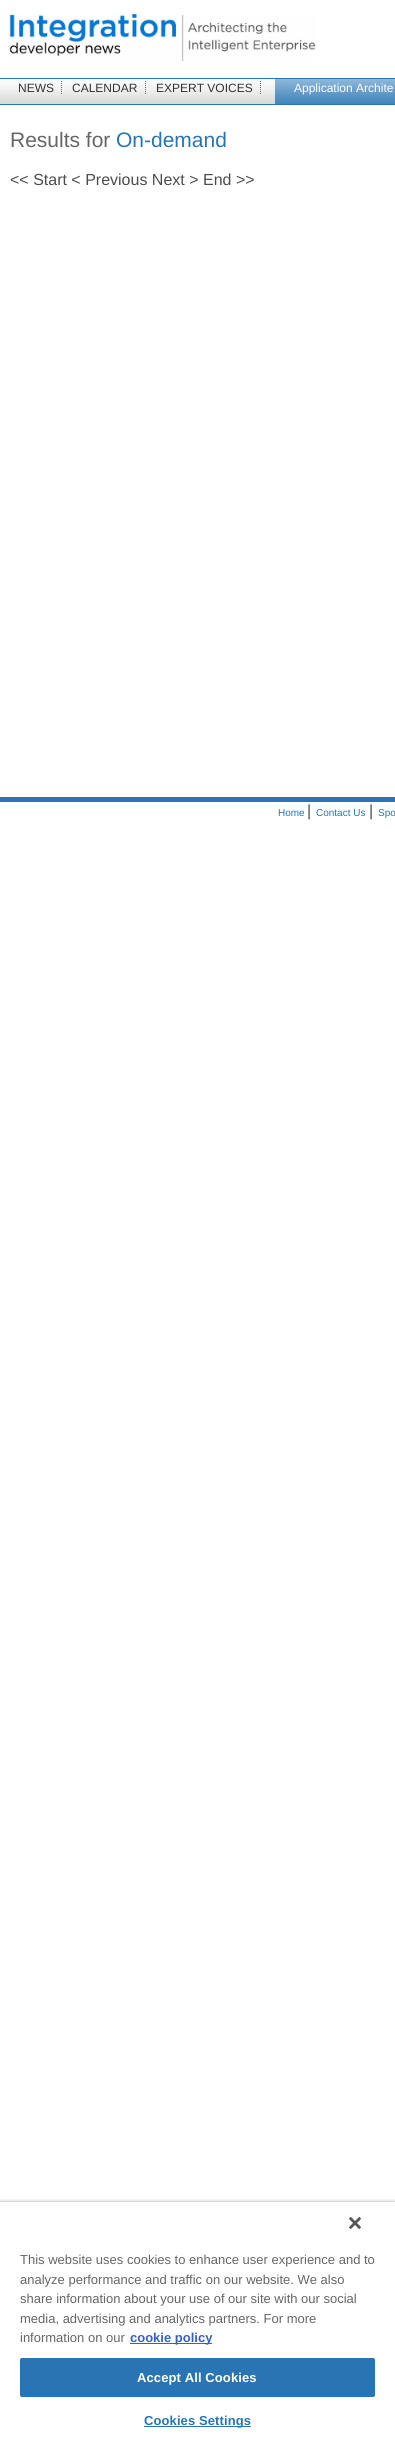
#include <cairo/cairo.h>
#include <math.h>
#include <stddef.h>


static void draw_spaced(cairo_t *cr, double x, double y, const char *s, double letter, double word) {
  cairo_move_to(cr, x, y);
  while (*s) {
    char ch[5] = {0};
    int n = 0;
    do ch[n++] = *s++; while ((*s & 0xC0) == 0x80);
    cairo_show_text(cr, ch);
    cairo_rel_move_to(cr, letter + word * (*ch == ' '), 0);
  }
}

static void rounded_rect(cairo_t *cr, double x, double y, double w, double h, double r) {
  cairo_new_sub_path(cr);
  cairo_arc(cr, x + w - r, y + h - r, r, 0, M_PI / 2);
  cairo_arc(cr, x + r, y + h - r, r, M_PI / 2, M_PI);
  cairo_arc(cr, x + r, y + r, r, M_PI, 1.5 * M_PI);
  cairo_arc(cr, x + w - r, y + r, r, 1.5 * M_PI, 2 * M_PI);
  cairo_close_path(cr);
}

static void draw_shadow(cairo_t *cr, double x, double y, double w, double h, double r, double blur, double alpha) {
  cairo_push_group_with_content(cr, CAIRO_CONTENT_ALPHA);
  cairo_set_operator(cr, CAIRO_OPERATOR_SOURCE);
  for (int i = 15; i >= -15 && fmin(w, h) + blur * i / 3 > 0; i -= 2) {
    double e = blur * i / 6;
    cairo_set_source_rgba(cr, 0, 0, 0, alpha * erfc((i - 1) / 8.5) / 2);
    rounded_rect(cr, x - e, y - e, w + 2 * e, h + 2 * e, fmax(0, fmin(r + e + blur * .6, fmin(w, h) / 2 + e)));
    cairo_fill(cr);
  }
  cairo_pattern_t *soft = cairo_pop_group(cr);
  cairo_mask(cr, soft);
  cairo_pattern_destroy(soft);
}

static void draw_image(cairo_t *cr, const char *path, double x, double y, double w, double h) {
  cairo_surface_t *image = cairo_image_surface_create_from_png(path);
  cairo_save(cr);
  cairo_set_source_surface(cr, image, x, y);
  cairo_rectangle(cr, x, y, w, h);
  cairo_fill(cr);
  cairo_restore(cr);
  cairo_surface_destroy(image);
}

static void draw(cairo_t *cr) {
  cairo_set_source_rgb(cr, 1, 1, 1);
  cairo_paint(cr);
  draw_image(cr, "images/1.png", 9, 13, 307, 49);
  cairo_set_source_rgb(cr, 41 / 255.0, 117 / 255.0, 178 / 255.0);
  cairo_rectangle(cr, 0, 78, 395, 1);
  cairo_fill(cr);
  cairo_rectangle(cr, 0, 104, 395, 1);
  cairo_fill(cr);
  draw_image(cr, "images/2.png", 0, 79, 275, 25);
  cairo_new_path(cr);
  cairo_move_to(cr, 61.5, 81);
  cairo_line_to(cr, 61.5, 95);
  cairo_set_source_rgb(cr, 102 / 255.0, 102 / 255.0, 102 / 255.0);
  cairo_set_line_width(cr, 1);
  cairo_set_dash(cr, (double[]){1, 1}, 2, 0);
  cairo_stroke(cr);
  cairo_new_path(cr);
  cairo_move_to(cr, 145.5, 81);
  cairo_line_to(cr, 145.5, 95);
  cairo_stroke(cr);
  cairo_new_path(cr);
  cairo_move_to(cr, 260.5, 81);
  cairo_line_to(cr, 260.5, 95);
  cairo_stroke(cr);
  draw_image(cr, "images/3.png", 275, 79, 120, 25);
  cairo_set_source_rgb(cr, 41 / 255.0, 117 / 255.0, 179 / 255.0);
  cairo_rectangle(cr, 0, 797, 395, 5);
  cairo_fill(cr);
  cairo_save(cr);
  cairo_rectangle(cr, 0, 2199, 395, 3);
  cairo_clip(cr);
  cairo_set_source_rgb(cr, 0, 0, 0);
  draw_shadow(cr, 0, 2202, 395, 242, 0, 2, 0.35);
  cairo_restore(cr);
  draw_image(cr, "images/4.png", 349, 2217, 12, 12);
  cairo_set_source_rgb(cr, 56 / 255.0, 96 / 255.0, 190 / 255.0);
  cairo_rectangle(cr, 130, 2343, 82, 1);
  cairo_fill(cr);
  cairo_set_source_rgb(cr, 41 / 255.0, 117 / 255.0, 179 / 255.0);
  rounded_rect(cr, 20.5, 2358.5, 354, 38, 1.5);
  cairo_fill_preserve(cr);
  cairo_set_dash(cr, NULL, 0, 0);
  cairo_stroke(cr);
  cairo_rectangle(cr, 144, 2426, 107, 1);
  cairo_fill(cr);
  cairo_select_font_face(cr, "Liberation Sans", CAIRO_FONT_SLANT_NORMAL, CAIRO_FONT_WEIGHT_NORMAL);
  cairo_set_font_size(cr, 12);
  cairo_set_source_rgb(cr, 51 / 255.0, 51 / 255.0, 51 / 255.0);
  cairo_move_to(cr, 18, 92);
  cairo_show_text(cr, "NEWS");
  cairo_move_to(cr, 72, 92);
  cairo_show_text(cr, "CALENDAR");
  cairo_move_to(cr, 156, 92);
  cairo_show_text(cr, "EXPERT VOICES");
  cairo_set_source_rgb(cr, 1, 1, 1);
  cairo_move_to(cr, 294, 92);
  cairo_show_text(cr, "Application Archite");
  cairo_set_font_size(cr, 21);
  cairo_set_source_rgb(cr, 102 / 255.0, 102 / 255.0, 102 / 255.0);
  cairo_move_to(cr, 10, 147);
  cairo_show_text(cr, "Results for");
  cairo_set_source_rgb(cr, 41 / 255.0, 117 / 255.0, 179 / 255.0);
  cairo_move_to(cr, 116, 147);
  cairo_show_text(cr, "On-demand");
  cairo_set_font_size(cr, 16);
  cairo_set_source_rgb(cr, 77 / 255.0, 77 / 255.0, 77 / 255.0);
  cairo_move_to(cr, 10, 185);
  cairo_show_text(cr, "<< Start < Previous Next > End >>");
  cairo_set_font_size(cr, 10);
  cairo_set_source_rgb(cr, 41 / 255.0, 117 / 255.0, 179 / 255.0);
  cairo_move_to(cr, 278, 816);
  cairo_show_text(cr, "Home");
  cairo_set_font_size(cr, 16);
  cairo_set_source_rgb(cr, 77 / 255.0, 77 / 255.0, 77 / 255.0);
  cairo_move_to(cr, 307, 816);
  cairo_show_text(cr, "|");
  cairo_set_font_size(cr, 10);
  cairo_set_source_rgb(cr, 41 / 255.0, 117 / 255.0, 179 / 255.0);
  cairo_move_to(cr, 316, 816);
  cairo_show_text(cr, "Contact Us");
  cairo_set_font_size(cr, 16);
  cairo_set_source_rgb(cr, 77 / 255.0, 77 / 255.0, 77 / 255.0);
  cairo_move_to(cr, 369, 816);
  cairo_show_text(cr, "|");
  cairo_set_font_size(cr, 10);
  cairo_set_source_rgb(cr, 41 / 255.0, 117 / 255.0, 179 / 255.0);
  cairo_move_to(cr, 378, 816);
  cairo_show_text(cr, "Spo");
  cairo_set_font_size(cr, 13);
  cairo_set_source_rgb(cr, 102 / 255.0, 102 / 255.0, 102 / 255.0);
  cairo_move_to(cr, 20, 2264);
  cairo_show_text(cr, "This website uses cookies to enhance user experience and to");
  cairo_move_to(cr, 20, 2284);
  cairo_show_text(cr, "analyze performance and traffic on our website. We also");
  cairo_move_to(cr, 20, 2303);
  cairo_show_text(cr, "share information about your use of our site with our social");
  cairo_move_to(cr, 20, 2323);
  cairo_show_text(cr, "media, advertising and analytics partners. For more");
  cairo_move_to(cr, 20, 2342);
  cairo_show_text(cr, "information on our");
  cairo_select_font_face(cr, "Liberation Sans", CAIRO_FONT_SLANT_NORMAL, CAIRO_FONT_WEIGHT_BOLD);
  cairo_set_source_rgb(cr, 56 / 255.0, 96 / 255.0, 190 / 255.0);
  cairo_move_to(cr, 130, 2342);
  cairo_show_text(cr, "cookie policy");
  cairo_set_source_rgb(cr, 1, 1, 1);
  draw_spaced(cr, 137, 2382, "Accept All Cookies", 0.1, 0);
  cairo_set_source_rgb(cr, 41 / 255.0, 117 / 255.0, 179 / 255.0);
  draw_spaced(cr, 144, 2425, "Cookies Settings", 0.1, 0);
}

int main(void) {
  cairo_surface_t *surface = cairo_image_surface_create(CAIRO_FORMAT_RGB24, 395, 2444);
  cairo_t *cr = cairo_create(surface);
  cairo_font_options_t *options = cairo_font_options_create();
  cairo_font_options_set_hint_metrics(options, CAIRO_HINT_METRICS_OFF);
  cairo_font_options_set_hint_style(options, CAIRO_HINT_STYLE_NONE);
  cairo_set_font_options(cr, options);
  cairo_set_miter_limit(cr, 4);
  draw(cr);
  cairo_surface_write_to_png(surface, "out.png");
  cairo_font_options_destroy(options);
  cairo_destroy(cr);
  cairo_surface_destroy(surface);
  return 0;
}
